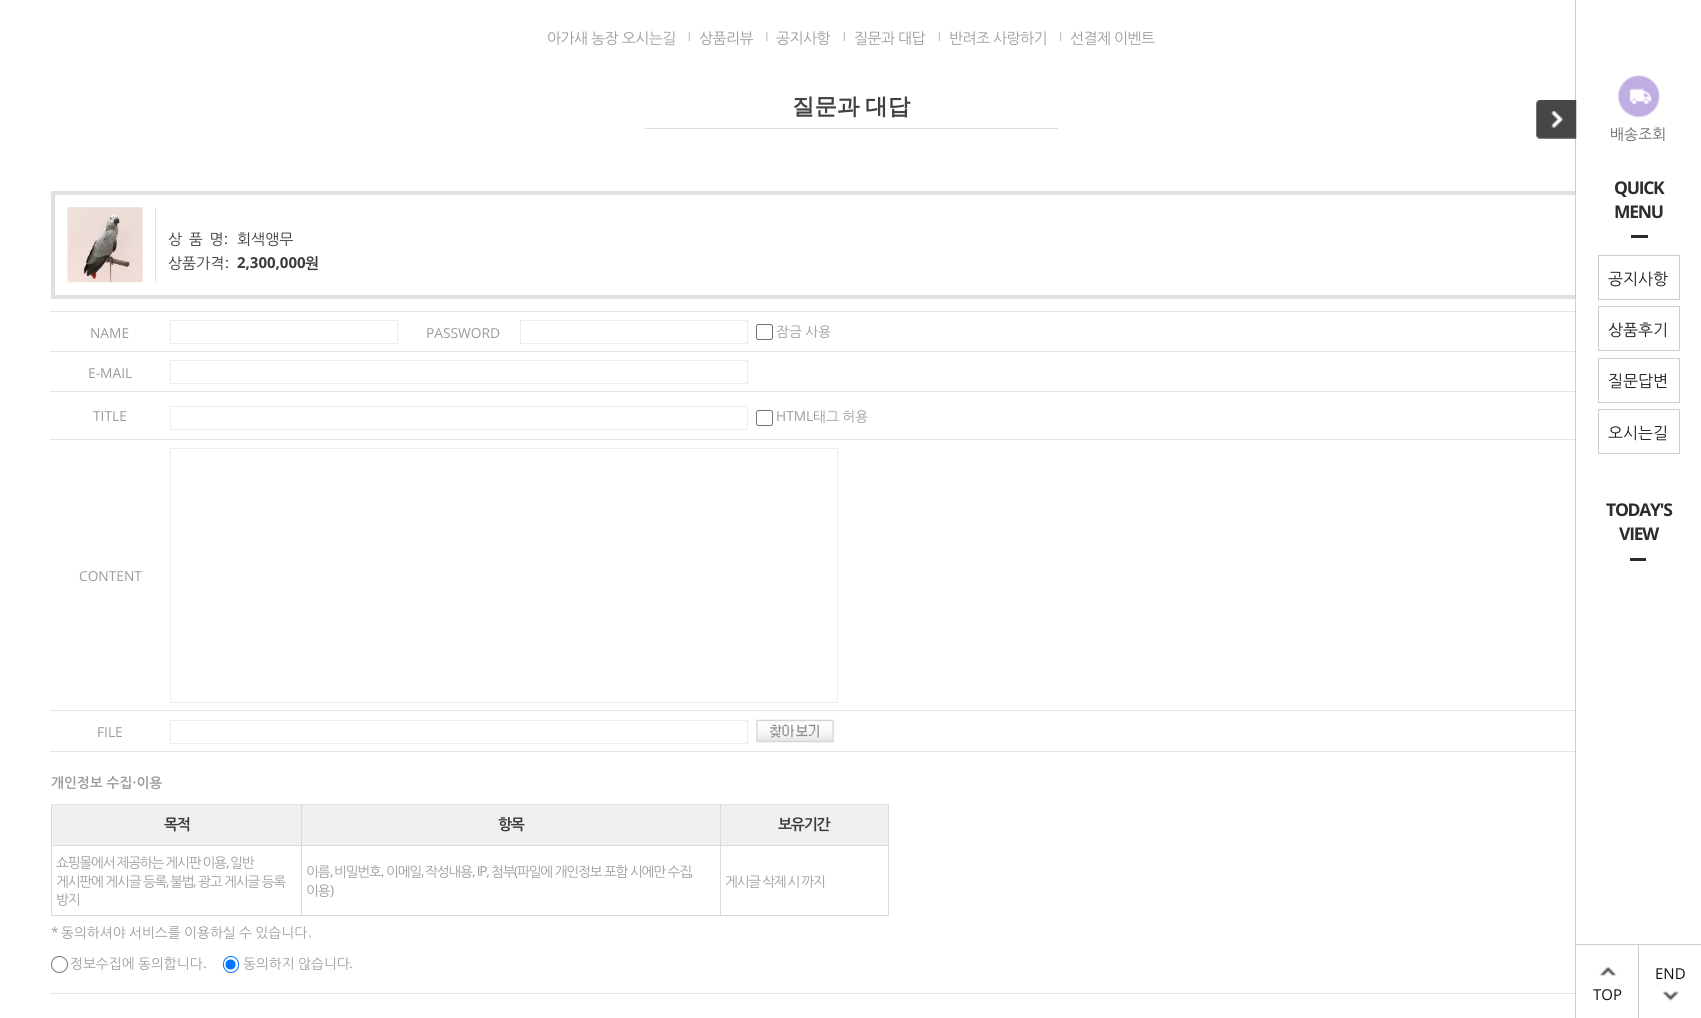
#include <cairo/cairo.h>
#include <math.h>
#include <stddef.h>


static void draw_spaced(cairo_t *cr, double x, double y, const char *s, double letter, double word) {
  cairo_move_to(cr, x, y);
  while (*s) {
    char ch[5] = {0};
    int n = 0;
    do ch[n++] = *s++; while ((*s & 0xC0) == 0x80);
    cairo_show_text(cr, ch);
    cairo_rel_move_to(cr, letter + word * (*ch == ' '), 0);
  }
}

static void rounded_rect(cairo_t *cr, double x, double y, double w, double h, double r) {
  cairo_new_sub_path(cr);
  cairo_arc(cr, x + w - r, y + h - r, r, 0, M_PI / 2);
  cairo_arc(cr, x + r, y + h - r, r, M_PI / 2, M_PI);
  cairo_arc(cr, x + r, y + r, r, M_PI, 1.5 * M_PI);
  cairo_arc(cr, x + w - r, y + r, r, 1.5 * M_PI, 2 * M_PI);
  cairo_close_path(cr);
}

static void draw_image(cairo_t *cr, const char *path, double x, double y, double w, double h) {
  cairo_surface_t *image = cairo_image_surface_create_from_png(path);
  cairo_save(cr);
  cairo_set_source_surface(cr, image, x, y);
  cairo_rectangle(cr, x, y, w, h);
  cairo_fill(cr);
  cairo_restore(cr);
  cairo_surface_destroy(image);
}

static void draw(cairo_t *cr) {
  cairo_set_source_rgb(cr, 1, 1, 1);
  cairo_paint(cr);
  draw_image(cr, "images/1.png", 688, 32, 2, 9);
  draw_image(cr, "images/2.png", 766, 32, 2, 9);
  draw_image(cr, "images/1.png", 843, 32, 2, 9);
  draw_image(cr, "images/1.png", 938, 32, 2, 9);
  draw_image(cr, "images/3.png", 1060, 32, 2, 9);
  cairo_set_source_rgb(cr, 221 / 255.0, 221 / 255.0, 221 / 255.0);
  cairo_rectangle(cr, 645, 128, 413, 1);
  cairo_fill(cr);
  cairo_rectangle(cr, 53, 193, 1596, 104);
  cairo_set_source_rgb(cr, 224 / 255.0, 224 / 255.0, 224 / 255.0);
  cairo_set_line_width(cr, 4);
  cairo_stroke(cr);
  draw_image(cr, "images/4.png", 67, 207, 76, 76);
  cairo_rectangle(cr, 155, 208, 1, 75);
  cairo_fill(cr);
  cairo_rectangle(cr, 170.5, 320.5, 227, 23);
  cairo_set_source_rgb(cr, 237 / 255.0, 237 / 255.0, 237 / 255.0);
  cairo_set_line_width(cr, 1);
  cairo_stroke(cr);
  cairo_set_source_rgb(cr, 229 / 255.0, 229 / 255.0, 229 / 255.0);
  cairo_rectangle(cr, 50, 311, 1525, 1);
  cairo_fill(cr);
  cairo_rectangle(cr, 520.5, 320.5, 227, 23);
  cairo_set_source_rgb(cr, 237 / 255.0, 237 / 255.0, 237 / 255.0);
  cairo_stroke(cr);
  rounded_rect(cr, 756.5, 324.5, 16, 15, 2);
  cairo_set_source_rgb(cr, 118 / 255.0, 118 / 255.0, 118 / 255.0);
  cairo_stroke(cr);
  cairo_set_source_rgb(cr, 229 / 255.0, 229 / 255.0, 229 / 255.0);
  cairo_rectangle(cr, 50, 351, 1525, 1);
  cairo_fill(cr);
  cairo_rectangle(cr, 170.5, 360.5, 577, 23);
  cairo_set_source_rgb(cr, 237 / 255.0, 237 / 255.0, 237 / 255.0);
  cairo_stroke(cr);
  cairo_set_source_rgb(cr, 229 / 255.0, 229 / 255.0, 229 / 255.0);
  cairo_rectangle(cr, 50, 391, 1525, 1);
  cairo_fill(cr);
  cairo_rectangle(cr, 170.5, 406.5, 577, 23);
  cairo_set_source_rgb(cr, 237 / 255.0, 237 / 255.0, 237 / 255.0);
  cairo_stroke(cr);
  rounded_rect(cr, 756.5, 410.5, 16, 15, 2);
  cairo_set_source_rgb(cr, 118 / 255.0, 118 / 255.0, 118 / 255.0);
  cairo_stroke(cr);
  cairo_set_source_rgb(cr, 229 / 255.0, 229 / 255.0, 229 / 255.0);
  cairo_rectangle(cr, 50, 439, 1525, 1);
  cairo_fill(cr);
  cairo_rectangle(cr, 170.5, 448.5, 667, 254);
  cairo_set_source_rgb(cr, 237 / 255.0, 237 / 255.0, 237 / 255.0);
  cairo_stroke(cr);
  cairo_set_source_rgb(cr, 229 / 255.0, 229 / 255.0, 229 / 255.0);
  cairo_rectangle(cr, 50, 710, 1525, 1);
  cairo_fill(cr);
  cairo_rectangle(cr, 170.5, 720.5, 577, 23);
  cairo_set_source_rgb(cr, 237 / 255.0, 237 / 255.0, 237 / 255.0);
  cairo_stroke(cr);
  draw_image(cr, "images/5.png", 756, 719, 78, 24);
  cairo_set_source_rgb(cr, 229 / 255.0, 229 / 255.0, 229 / 255.0);
  cairo_rectangle(cr, 50, 751, 1525, 1);
  cairo_fill(cr);
  cairo_rectangle(cr, 50, 993, 1525, 1);
  cairo_fill(cr);
  cairo_set_source_rgb(cr, 218 / 255.0, 218 / 255.0, 218 / 255.0);
  cairo_rectangle(cr, 51, 804, 1, 112);
  cairo_fill(cr);
  cairo_set_source_rgb(cr, 240 / 255.0, 240 / 255.0, 240 / 255.0);
  cairo_rectangle(cr, 52, 805, 668, 40);
  cairo_fill(cr);
  cairo_set_source_rgb(cr, 229 / 255.0, 229 / 255.0, 229 / 255.0);
  cairo_rectangle(cr, 51, 804, 838, 1);
  cairo_fill(cr);
  cairo_set_source_rgb(cr, 218 / 255.0, 218 / 255.0, 218 / 255.0);
  cairo_rectangle(cr, 888, 845, 1, 71);
  cairo_fill(cr);
  cairo_rectangle(cr, 888, 804, 1, 42);
  cairo_fill(cr);
  cairo_rectangle(cr, 720, 915, 169, 1);
  cairo_fill(cr);
  cairo_rectangle(cr, 720, 845, 1, 71);
  cairo_fill(cr);
  cairo_rectangle(cr, 720, 845, 169, 1);
  cairo_fill(cr);
  cairo_rectangle(cr, 720, 804, 1, 42);
  cairo_fill(cr);
  cairo_rectangle(cr, 301, 915, 420, 1);
  cairo_fill(cr);
  cairo_rectangle(cr, 301, 845, 1, 71);
  cairo_fill(cr);
  cairo_rectangle(cr, 301, 845, 420, 1);
  cairo_fill(cr);
  cairo_rectangle(cr, 301, 804, 1, 42);
  cairo_fill(cr);
  cairo_rectangle(cr, 51, 845, 252, 1);
  cairo_fill(cr);
  cairo_set_source_rgb(cr, 240 / 255.0, 240 / 255.0, 240 / 255.0);
  cairo_rectangle(cr, 721, 805, 167, 40);
  cairo_fill(cr);
  cairo_set_source_rgb(cr, 218 / 255.0, 218 / 255.0, 218 / 255.0);
  cairo_rectangle(cr, 51, 915, 252, 1);
  cairo_fill(cr);
  cairo_arc(cr, 59.5, 964.5, 8, 0, 2 * M_PI);
  cairo_set_source_rgb(cr, 118 / 255.0, 118 / 255.0, 118 / 255.0);
  cairo_stroke(cr);
  rounded_rect(cr, 223.5, 956.5, 15, 16, 7.5);
  cairo_set_source_rgb(cr, 0, 117 / 255.0, 1);
  cairo_stroke(cr);
  cairo_arc(cr, 230.5, 964.5, 5, 0, 2 * M_PI);
  cairo_fill(cr);
  cairo_set_source_rgb(cr, 1, 1, 1);
  cairo_rectangle(cr, 1576, 191, 75, 108);
  cairo_fill(cr);
  cairo_set_source_rgb(cr, 204 / 255.0, 204 / 255.0, 204 / 255.0);
  cairo_rectangle(cr, 1575, 0, 1, 1018);
  cairo_fill(cr);
  draw_image(cr, "images/6.png", 1536, 100, 41, 39);
  draw_image(cr, "images/7.png", 1551, 111, 12, 17);
  draw_image(cr, "images/8.png", 1617, 75, 43, 43);
  cairo_set_source_rgb(cr, 44 / 255.0, 44 / 255.0, 44 / 255.0);
  cairo_rectangle(cr, 1631, 235, 17, 3);
  cairo_fill(cr);
  cairo_rectangle(cr, 1598.5, 255.5, 81, 44);
  cairo_set_source_rgb(cr, 204 / 255.0, 204 / 255.0, 204 / 255.0);
  cairo_stroke(cr);
  cairo_rectangle(cr, 1598.5, 306.5, 81, 44);
  cairo_stroke(cr);
  cairo_rectangle(cr, 1598.5, 358.5, 81, 44);
  cairo_stroke(cr);
  cairo_rectangle(cr, 1598.5, 409.5, 81, 44);
  cairo_stroke(cr);
  cairo_set_source_rgb(cr, 44 / 255.0, 44 / 255.0, 44 / 255.0);
  cairo_rectangle(cr, 1630, 558, 16, 3);
  cairo_fill(cr);
  cairo_set_source_rgb(cr, 204 / 255.0, 204 / 255.0, 204 / 255.0);
  cairo_rectangle(cr, 1576, 944, 125, 1);
  cairo_fill(cr);
  cairo_rectangle(cr, 1638, 945, 1, 73);
  cairo_fill(cr);
  draw_image(cr, "images/9.png", 1662, 990, 17, 11);
  draw_image(cr, "images/10.png", 1599, 967, 18, 9);
  cairo_select_font_face(cr, "NanumGothic", CAIRO_FONT_SLANT_NORMAL, CAIRO_FONT_WEIGHT_NORMAL);
  cairo_set_font_size(cr, 15);
  cairo_set_source_rgb(cr, 156 / 255.0, 156 / 255.0, 156 / 255.0);
  draw_spaced(cr, 547, 43, "아가새 농장 오시는길", -0.6, 0);
  draw_spaced(cr, 699, 43, "상품리뷰", -0.6, 0);
  draw_spaced(cr, 776, 43, "공지사항", -0.6, 0);
  draw_spaced(cr, 854, 43, "질문과 대답", -0.6, 0);
  draw_spaced(cr, 949, 43, "반려조 사랑하기", -0.6, 0);
  draw_spaced(cr, 1070, 43, "선결제 이벤트", -0.6, 0);
  cairo_select_font_face(cr, "WenQuanYi Zen Hei", CAIRO_FONT_SLANT_NORMAL, CAIRO_FONT_WEIGHT_BOLD);
  cairo_set_font_size(cr, 22.5);
  cairo_set_source_rgb(cr, 65 / 255.0, 65 / 255.0, 65 / 255.0);
  draw_spaced(cr, 792, 114, "질문과 대답", 0, -1);
  cairo_select_font_face(cr, "NanumGothic", CAIRO_FONT_SLANT_NORMAL, CAIRO_FONT_WEIGHT_NORMAL);
  cairo_set_font_size(cr, 15);
  cairo_set_source_rgb(cr, 59 / 255.0, 59 / 255.0, 59 / 255.0);
  draw_spaced(cr, 168, 244, "상 품 명", 1.25, 0);
  cairo_select_font_face(cr, "Open Sans", CAIRO_FONT_SLANT_NORMAL, CAIRO_FONT_WEIGHT_NORMAL);
  draw_spaced(cr, 224, 244, ":", 1.25, 0);
  cairo_select_font_face(cr, "NanumGothic", CAIRO_FONT_SLANT_NORMAL, CAIRO_FONT_WEIGHT_NORMAL);
  cairo_move_to(cr, 237, 244);
  cairo_show_text(cr, "회색앵무");
  cairo_move_to(cr, 168, 268);
  cairo_show_text(cr, "상품가격");
  cairo_select_font_face(cr, "Open Sans", CAIRO_FONT_SLANT_NORMAL, CAIRO_FONT_WEIGHT_NORMAL);
  cairo_move_to(cr, 225, 268);
  cairo_show_text(cr, ":");
  cairo_select_font_face(cr, "Open Sans", CAIRO_FONT_SLANT_NORMAL, CAIRO_FONT_WEIGHT_BOLD);
  cairo_move_to(cr, 237, 268);
  cairo_show_text(cr, "2,300,000");
  cairo_select_font_face(cr, "NanumGothic", CAIRO_FONT_SLANT_NORMAL, CAIRO_FONT_WEIGHT_BOLD);
  cairo_move_to(cr, 305, 268);
  cairo_show_text(cr, "원");
  cairo_select_font_face(cr, "Open Sans", CAIRO_FONT_SLANT_NORMAL, CAIRO_FONT_WEIGHT_NORMAL);
  cairo_set_font_size(cr, 13.75);
  cairo_set_source_rgb(cr, 156 / 255.0, 156 / 255.0, 156 / 255.0);
  cairo_move_to(cr, 90, 338);
  cairo_show_text(cr, "NAME");
  cairo_move_to(cr, 426, 338);
  cairo_show_text(cr, "PASSWORD");
  cairo_select_font_face(cr, "NanumGothic", CAIRO_FONT_SLANT_NORMAL, CAIRO_FONT_WEIGHT_NORMAL);
  draw_spaced(cr, 776, 336, "잠금 사용", 0, -0.5);
  cairo_select_font_face(cr, "Open Sans", CAIRO_FONT_SLANT_NORMAL, CAIRO_FONT_WEIGHT_NORMAL);
  cairo_move_to(cr, 88, 378);
  cairo_show_text(cr, "E-MAIL");
  cairo_move_to(cr, 93, 421);
  cairo_show_text(cr, "TITLE");
  cairo_move_to(cr, 776, 421);
  cairo_show_text(cr, "HTML");
  cairo_select_font_face(cr, "NanumGothic", CAIRO_FONT_SLANT_NORMAL, CAIRO_FONT_WEIGHT_NORMAL);
  draw_spaced(cr, 813, 421, "태그 허용", 0, -0.5);
  cairo_select_font_face(cr, "Open Sans", CAIRO_FONT_SLANT_NORMAL, CAIRO_FONT_WEIGHT_NORMAL);
  cairo_move_to(cr, 79, 581);
  cairo_show_text(cr, "CONTENT");
  cairo_move_to(cr, 97, 737);
  cairo_show_text(cr, "FILE");
  cairo_select_font_face(cr, "NanumGothic", CAIRO_FONT_SLANT_NORMAL, CAIRO_FONT_WEIGHT_BOLD);
  cairo_move_to(cr, 51, 787);
  cairo_show_text(cr, "개인정보 수집·이용");
  cairo_set_font_size(cr, 15);
  cairo_set_source_rgb(cr, 59 / 255.0, 59 / 255.0, 59 / 255.0);
  draw_spaced(cr, 164, 829, "목적", -1.25, 0);
  draw_spaced(cr, 498, 829, "항목", -1.25, 0);
  draw_spaced(cr, 778, 829, "보유기간", -1.25, 0);
  cairo_select_font_face(cr, "NanumGothic", CAIRO_FONT_SLANT_NORMAL, CAIRO_FONT_WEIGHT_NORMAL);
  cairo_set_font_size(cr, 13.75);
  cairo_set_source_rgb(cr, 156 / 255.0, 156 / 255.0, 156 / 255.0);
  draw_spaced(cr, 56, 867, "쇼핑몰에서 제공하는 게시판 이용", -1.25, -0.5);
  cairo_select_font_face(cr, "Open Sans", CAIRO_FONT_SLANT_NORMAL, CAIRO_FONT_WEIGHT_NORMAL);
  draw_spaced(cr, 226, 867, ",", -1.25, 0);
  cairo_select_font_face(cr, "NanumGothic", CAIRO_FONT_SLANT_NORMAL, CAIRO_FONT_WEIGHT_NORMAL);
  draw_spaced(cr, 230, 867, "일반", -1.25, 0);
  draw_spaced(cr, 56, 886, "게시판에 게시글 등록", -1.25, 0);
  cairo_select_font_face(cr, "Open Sans", CAIRO_FONT_SLANT_NORMAL, CAIRO_FONT_WEIGHT_NORMAL);
  draw_spaced(cr, 166, 886, ",", -1.25, 0);
  cairo_select_font_face(cr, "NanumGothic", CAIRO_FONT_SLANT_NORMAL, CAIRO_FONT_WEIGHT_NORMAL);
  draw_spaced(cr, 170, 886, "불법", -1.25, 0);
  cairo_select_font_face(cr, "Open Sans", CAIRO_FONT_SLANT_NORMAL, CAIRO_FONT_WEIGHT_NORMAL);
  draw_spaced(cr, 193, 886, ",", -1.25, 0);
  cairo_select_font_face(cr, "NanumGothic", CAIRO_FONT_SLANT_NORMAL, CAIRO_FONT_WEIGHT_NORMAL);
  draw_spaced(cr, 198, 886, "광고 게시글 등록", -1.25, 0);
  draw_spaced(cr, 56, 904, "방지", -1.25, 0);
  draw_spaced(cr, 306, 876, "이름", -1.25, 0);
  draw_spaced(cr, 334, 876, "비밀번호", -1.25, 0);
  draw_spaced(cr, 386, 876, "이메일", -1.25, 0);
  draw_spaced(cr, 425, 876, "작성내용", -1.25, 0);
  cairo_select_font_face(cr, "Open Sans", CAIRO_FONT_SLANT_NORMAL, CAIRO_FONT_WEIGHT_NORMAL);
  draw_spaced(cr, 472, 876, ", IP,", -1.25, 0);
  cairo_select_font_face(cr, "NanumGothic", CAIRO_FONT_SLANT_NORMAL, CAIRO_FONT_WEIGHT_NORMAL);
  draw_spaced(cr, 491, 876, "첨부", -1.25, 0);
  cairo_select_font_face(cr, "Open Sans", CAIRO_FONT_SLANT_NORMAL, CAIRO_FONT_WEIGHT_NORMAL);
  draw_spaced(cr, 330, 876, ",", -1.25, 0);
  draw_spaced(cr, 381, 876, ",", -1.25, 0);
  draw_spaced(cr, 421, 876, ",", -1.25, 0);
  draw_spaced(cr, 514, 876, "(", -1.25, 0);
  cairo_select_font_face(cr, "NanumGothic", CAIRO_FONT_SLANT_NORMAL, CAIRO_FONT_WEIGHT_NORMAL);
  draw_spaced(cr, 517, 876, "파일에 개인정보 포함 시에만 수집", -1.25, 0);
  cairo_select_font_face(cr, "Open Sans", CAIRO_FONT_SLANT_NORMAL, CAIRO_FONT_WEIGHT_NORMAL);
  draw_spaced(cr, 690, 876, ",", -1.25, 0);
  cairo_select_font_face(cr, "NanumGothic", CAIRO_FONT_SLANT_NORMAL, CAIRO_FONT_WEIGHT_NORMAL);
  draw_spaced(cr, 306, 895, "이용", -1.25, 0);
  cairo_select_font_face(cr, "Open Sans", CAIRO_FONT_SLANT_NORMAL, CAIRO_FONT_WEIGHT_NORMAL);
  draw_spaced(cr, 330, 895, ")", -1.25, 0);
  cairo_select_font_face(cr, "NanumGothic", CAIRO_FONT_SLANT_NORMAL, CAIRO_FONT_WEIGHT_NORMAL);
  draw_spaced(cr, 725, 886, "게시글 삭제 시 까지", -1.25, -0.5);
  cairo_select_font_face(cr, "Open Sans", CAIRO_FONT_SLANT_NORMAL, CAIRO_FONT_WEIGHT_NORMAL);
  cairo_move_to(cr, 51, 937);
  cairo_show_text(cr, "*");
  cairo_select_font_face(cr, "NanumGothic", CAIRO_FONT_SLANT_NORMAL, CAIRO_FONT_WEIGHT_NORMAL);
  draw_spaced(cr, 61, 937, "동의하셔야 서비스를 이용하실 수 있습니다", 0, -0.5);
  cairo_select_font_face(cr, "Open Sans", CAIRO_FONT_SLANT_NORMAL, CAIRO_FONT_WEIGHT_NORMAL);
  cairo_move_to(cr, 308, 937);
  cairo_show_text(cr, ".");
  cairo_select_font_face(cr, "NanumGothic", CAIRO_FONT_SLANT_NORMAL, CAIRO_FONT_WEIGHT_NORMAL);
  draw_spaced(cr, 70, 968, "정보수집에 동의합니다", 0, -0.5);
  cairo_select_font_face(cr, "Open Sans", CAIRO_FONT_SLANT_NORMAL, CAIRO_FONT_WEIGHT_NORMAL);
  cairo_move_to(cr, 203, 968);
  cairo_show_text(cr, ".");
  cairo_select_font_face(cr, "NanumGothic", CAIRO_FONT_SLANT_NORMAL, CAIRO_FONT_WEIGHT_NORMAL);
  draw_spaced(cr, 243, 968, "동의하지 않습니다", 0, -0.5);
  cairo_select_font_face(cr, "Open Sans", CAIRO_FONT_SLANT_NORMAL, CAIRO_FONT_WEIGHT_NORMAL);
  cairo_move_to(cr, 349, 968);
  cairo_show_text(cr, ".");
  cairo_select_font_face(cr, "NanumGothic", CAIRO_FONT_SLANT_NORMAL, CAIRO_FONT_WEIGHT_NORMAL);
  cairo_set_font_size(cr, 15);
  cairo_set_source_rgb(cr, 104 / 255.0, 104 / 255.0, 104 / 255.0);
  cairo_move_to(cr, 1610, 139);
  cairo_show_text(cr, "배송조회");
  cairo_select_font_face(cr, "Open Sans", CAIRO_FONT_SLANT_NORMAL, CAIRO_FONT_WEIGHT_BOLD);
  cairo_set_font_size(cr, 17.5);
  cairo_set_source_rgb(cr, 44 / 255.0, 44 / 255.0, 44 / 255.0);
  draw_spaced(cr, 1614, 194, "QUICK", -1.25, 0);
  draw_spaced(cr, 1614, 218, "MENU", -1.25, 0);
  cairo_select_font_face(cr, "NanumGothic", CAIRO_FONT_SLANT_NORMAL, CAIRO_FONT_WEIGHT_NORMAL);
  cairo_set_font_size(cr, 16);
  cairo_set_source_rgb(cr, 27 / 255.0, 27 / 255.0, 27 / 255.0);
  cairo_move_to(cr, 1608, 284);
  cairo_show_text(cr, "공지사항");
  cairo_move_to(cr, 1608, 335);
  cairo_show_text(cr, "상품후기");
  cairo_move_to(cr, 1608, 386);
  cairo_show_text(cr, "질문답변");
  cairo_move_to(cr, 1608, 438);
  cairo_show_text(cr, "오시는길");
  cairo_select_font_face(cr, "Open Sans", CAIRO_FONT_SLANT_NORMAL, CAIRO_FONT_WEIGHT_BOLD);
  cairo_set_font_size(cr, 17.5);
  cairo_set_source_rgb(cr, 44 / 255.0, 44 / 255.0, 44 / 255.0);
  draw_spaced(cr, 1606, 516, "TODAY'S", -1.25, 0);
  draw_spaced(cr, 1619, 540, "VIEW", -1.25, 0);
  cairo_select_font_face(cr, "Open Sans", CAIRO_FONT_SLANT_NORMAL, CAIRO_FONT_WEIGHT_NORMAL);
  cairo_set_font_size(cr, 15);
  cairo_set_source_rgb(cr, 17 / 255.0, 17 / 255.0, 17 / 255.0);
  cairo_move_to(cr, 1655, 979);
  cairo_show_text(cr, "END");
  cairo_move_to(cr, 1593, 1000);
  cairo_show_text(cr, "TOP");
}

int main(void) {
  cairo_surface_t *surface = cairo_image_surface_create(CAIRO_FORMAT_RGB24, 1701, 1018);
  cairo_t *cr = cairo_create(surface);
  cairo_font_options_t *options = cairo_font_options_create();
  cairo_font_options_set_hint_metrics(options, CAIRO_HINT_METRICS_OFF);
  cairo_font_options_set_hint_style(options, CAIRO_HINT_STYLE_NONE);
  cairo_set_font_options(cr, options);
  cairo_set_miter_limit(cr, 4);
  draw(cr);
  cairo_surface_write_to_png(surface, "out.png");
  cairo_font_options_destroy(options);
  cairo_destroy(cr);
  cairo_surface_destroy(surface);
  return 0;
}
